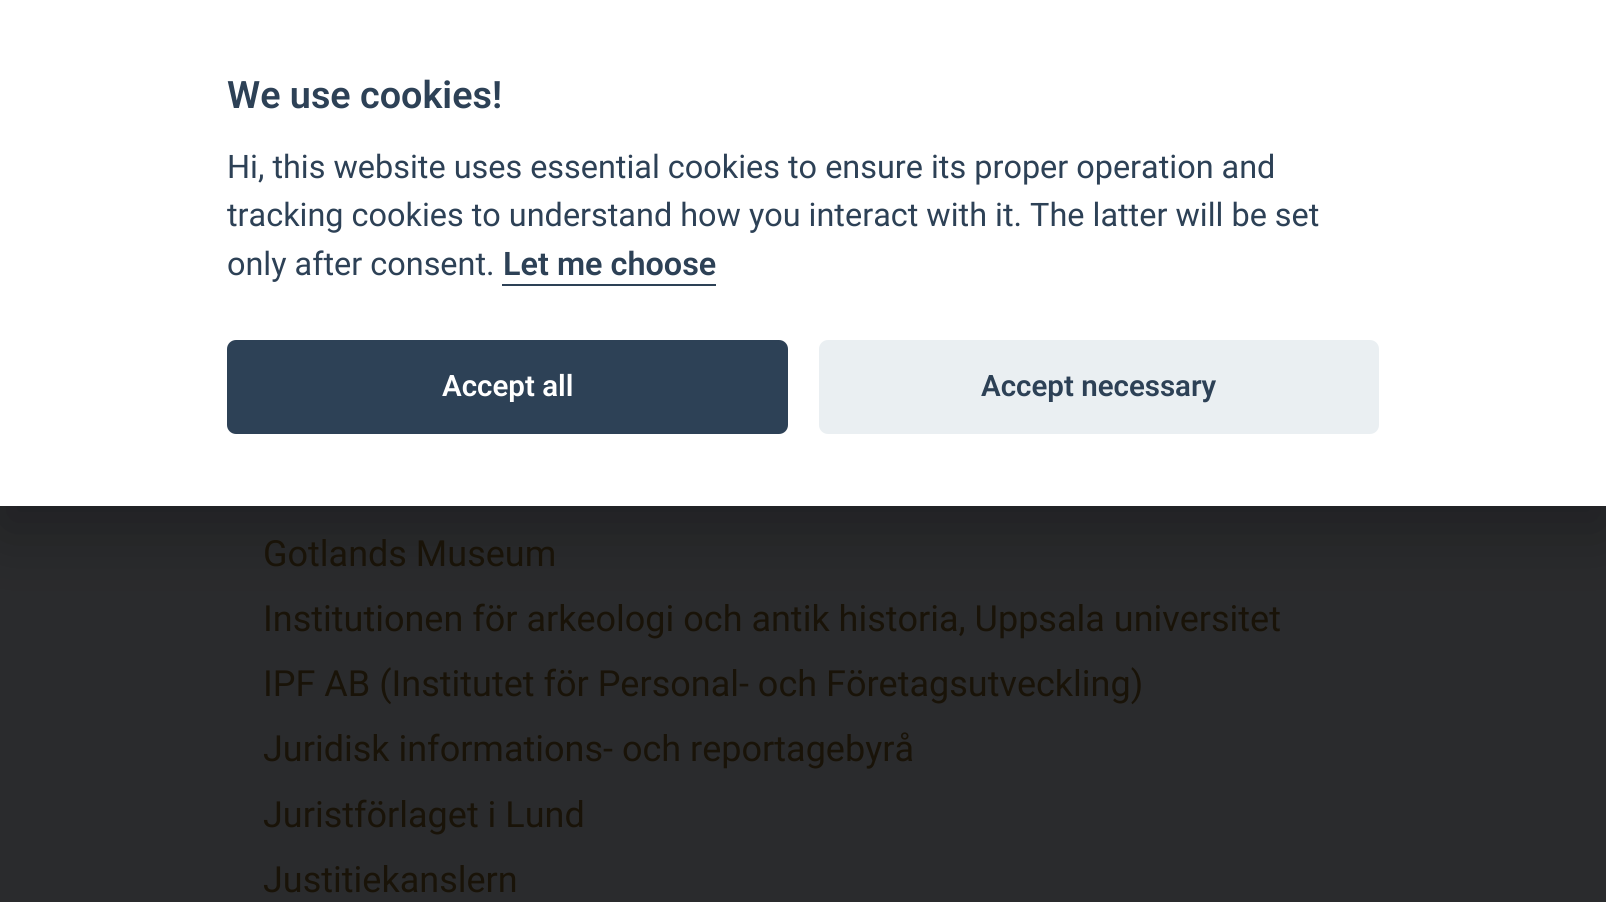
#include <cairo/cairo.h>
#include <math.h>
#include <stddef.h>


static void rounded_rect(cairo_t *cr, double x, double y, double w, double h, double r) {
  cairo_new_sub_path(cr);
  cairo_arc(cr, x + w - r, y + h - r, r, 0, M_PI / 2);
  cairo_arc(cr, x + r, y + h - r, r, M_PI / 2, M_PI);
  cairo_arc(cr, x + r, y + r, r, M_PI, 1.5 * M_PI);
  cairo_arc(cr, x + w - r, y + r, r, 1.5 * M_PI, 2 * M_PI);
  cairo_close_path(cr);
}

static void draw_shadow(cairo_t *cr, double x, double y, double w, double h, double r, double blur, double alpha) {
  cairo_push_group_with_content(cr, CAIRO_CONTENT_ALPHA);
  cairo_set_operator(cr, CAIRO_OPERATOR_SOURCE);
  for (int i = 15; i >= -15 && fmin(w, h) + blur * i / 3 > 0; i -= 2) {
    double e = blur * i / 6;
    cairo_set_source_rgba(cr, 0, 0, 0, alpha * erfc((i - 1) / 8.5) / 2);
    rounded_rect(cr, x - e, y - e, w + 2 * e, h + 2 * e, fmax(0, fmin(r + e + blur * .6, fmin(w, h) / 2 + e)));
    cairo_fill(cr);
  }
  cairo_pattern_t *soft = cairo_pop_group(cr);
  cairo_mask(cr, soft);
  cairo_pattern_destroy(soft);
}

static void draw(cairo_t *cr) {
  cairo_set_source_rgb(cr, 42 / 255.0, 43 / 255.0, 45 / 255.0);
  cairo_paint(cr);
  cairo_set_source_rgb(cr, 2 / 255.0, 2 / 255.0, 3 / 255.0);
  draw_shadow(cr, 0, 23, 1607, 506, 0, 34, 0.28);
  cairo_set_source_rgb(cr, 1, 1, 1);
  cairo_rectangle(cr, 0, 0, 1606, 506);
  cairo_fill(cr);
  cairo_set_source_rgb(cr, 45 / 255.0, 65 / 255.0, 86 / 255.0);
  cairo_rectangle(cr, 502, 284, 214, 2);
  cairo_fill(cr);
  rounded_rect(cr, 227, 340, 561, 94, 9);
  cairo_fill(cr);
  cairo_set_source_rgb(cr, 234 / 255.0, 239 / 255.0, 242 / 255.0);
  rounded_rect(cr, 819, 340, 560, 94, 9);
  cairo_fill(cr);
  cairo_select_font_face(cr, "Roboto SemiBold", CAIRO_FONT_SLANT_NORMAL, CAIRO_FONT_WEIGHT_NORMAL);
  cairo_set_font_size(cr, 37.75);
  cairo_set_source_rgb(cr, 45 / 255.0, 65 / 255.0, 86 / 255.0);
  cairo_move_to(cr, 227, 108);
  cairo_show_text(cr, "We use cookies!");
  cairo_select_font_face(cr, "Roboto", CAIRO_FONT_SLANT_NORMAL, CAIRO_FONT_WEIGHT_NORMAL);
  cairo_set_font_size(cr, 32.4);
  cairo_move_to(cr, 227, 178);
  cairo_show_text(cr, "Hi, this website uses essential cookies to ensure its proper operation and");
  cairo_move_to(cr, 227, 226);
  cairo_show_text(cr, "tracking cookies to understand how you interact with it. The latter will be set");
  cairo_move_to(cr, 227, 275);
  cairo_show_text(cr, "only after consent.");
  cairo_select_font_face(cr, "Roboto SemiBold", CAIRO_FONT_SLANT_NORMAL, CAIRO_FONT_WEIGHT_NORMAL);
  cairo_move_to(cr, 503, 275);
  cairo_show_text(cr, "Let me choose");
  cairo_set_font_size(cr, 29.5);
  cairo_set_source_rgb(cr, 1, 1, 1);
  cairo_move_to(cr, 442, 396);
  cairo_show_text(cr, "Accept all");
  cairo_set_source_rgb(cr, 45 / 255.0, 65 / 255.0, 86 / 255.0);
  cairo_move_to(cr, 981, 396);
  cairo_show_text(cr, "Accept necessary");
  cairo_select_font_face(cr, "Roboto", CAIRO_FONT_SLANT_NORMAL, CAIRO_FONT_WEIGHT_NORMAL);
  cairo_set_font_size(cr, 36);
  cairo_set_source_rgb(cr, 25 / 255.0, 19 / 255.0, 8 / 255.0);
  cairo_move_to(cr, 263, 566);
  cairo_show_text(cr, "Gotlands Museum");
  cairo_move_to(cr, 263, 631);
  cairo_show_text(cr, "Institutionen för arkeologi och antik historia, Uppsala universitet");
  cairo_move_to(cr, 263, 696);
  cairo_show_text(cr, "IPF AB (Institutet för Personal- och Företagsutveckling)");
  cairo_move_to(cr, 263, 761);
  cairo_show_text(cr, "Juridisk informations- och reportagebyrå");
  cairo_move_to(cr, 263, 827);
  cairo_show_text(cr, "Juristförlaget i Lund");
  cairo_move_to(cr, 263, 892);
  cairo_show_text(cr, "Justitiekanslern");
}

int main(void) {
  cairo_surface_t *surface = cairo_image_surface_create(CAIRO_FORMAT_RGB24, 1606, 902);
  cairo_t *cr = cairo_create(surface);
  cairo_font_options_t *options = cairo_font_options_create();
  cairo_font_options_set_hint_metrics(options, CAIRO_HINT_METRICS_OFF);
  cairo_font_options_set_hint_style(options, CAIRO_HINT_STYLE_NONE);
  cairo_set_font_options(cr, options);
  cairo_set_miter_limit(cr, 4);
  draw(cr);
  cairo_surface_write_to_png(surface, "out.png");
  cairo_font_options_destroy(options);
  cairo_destroy(cr);
  cairo_surface_destroy(surface);
  return 0;
}
